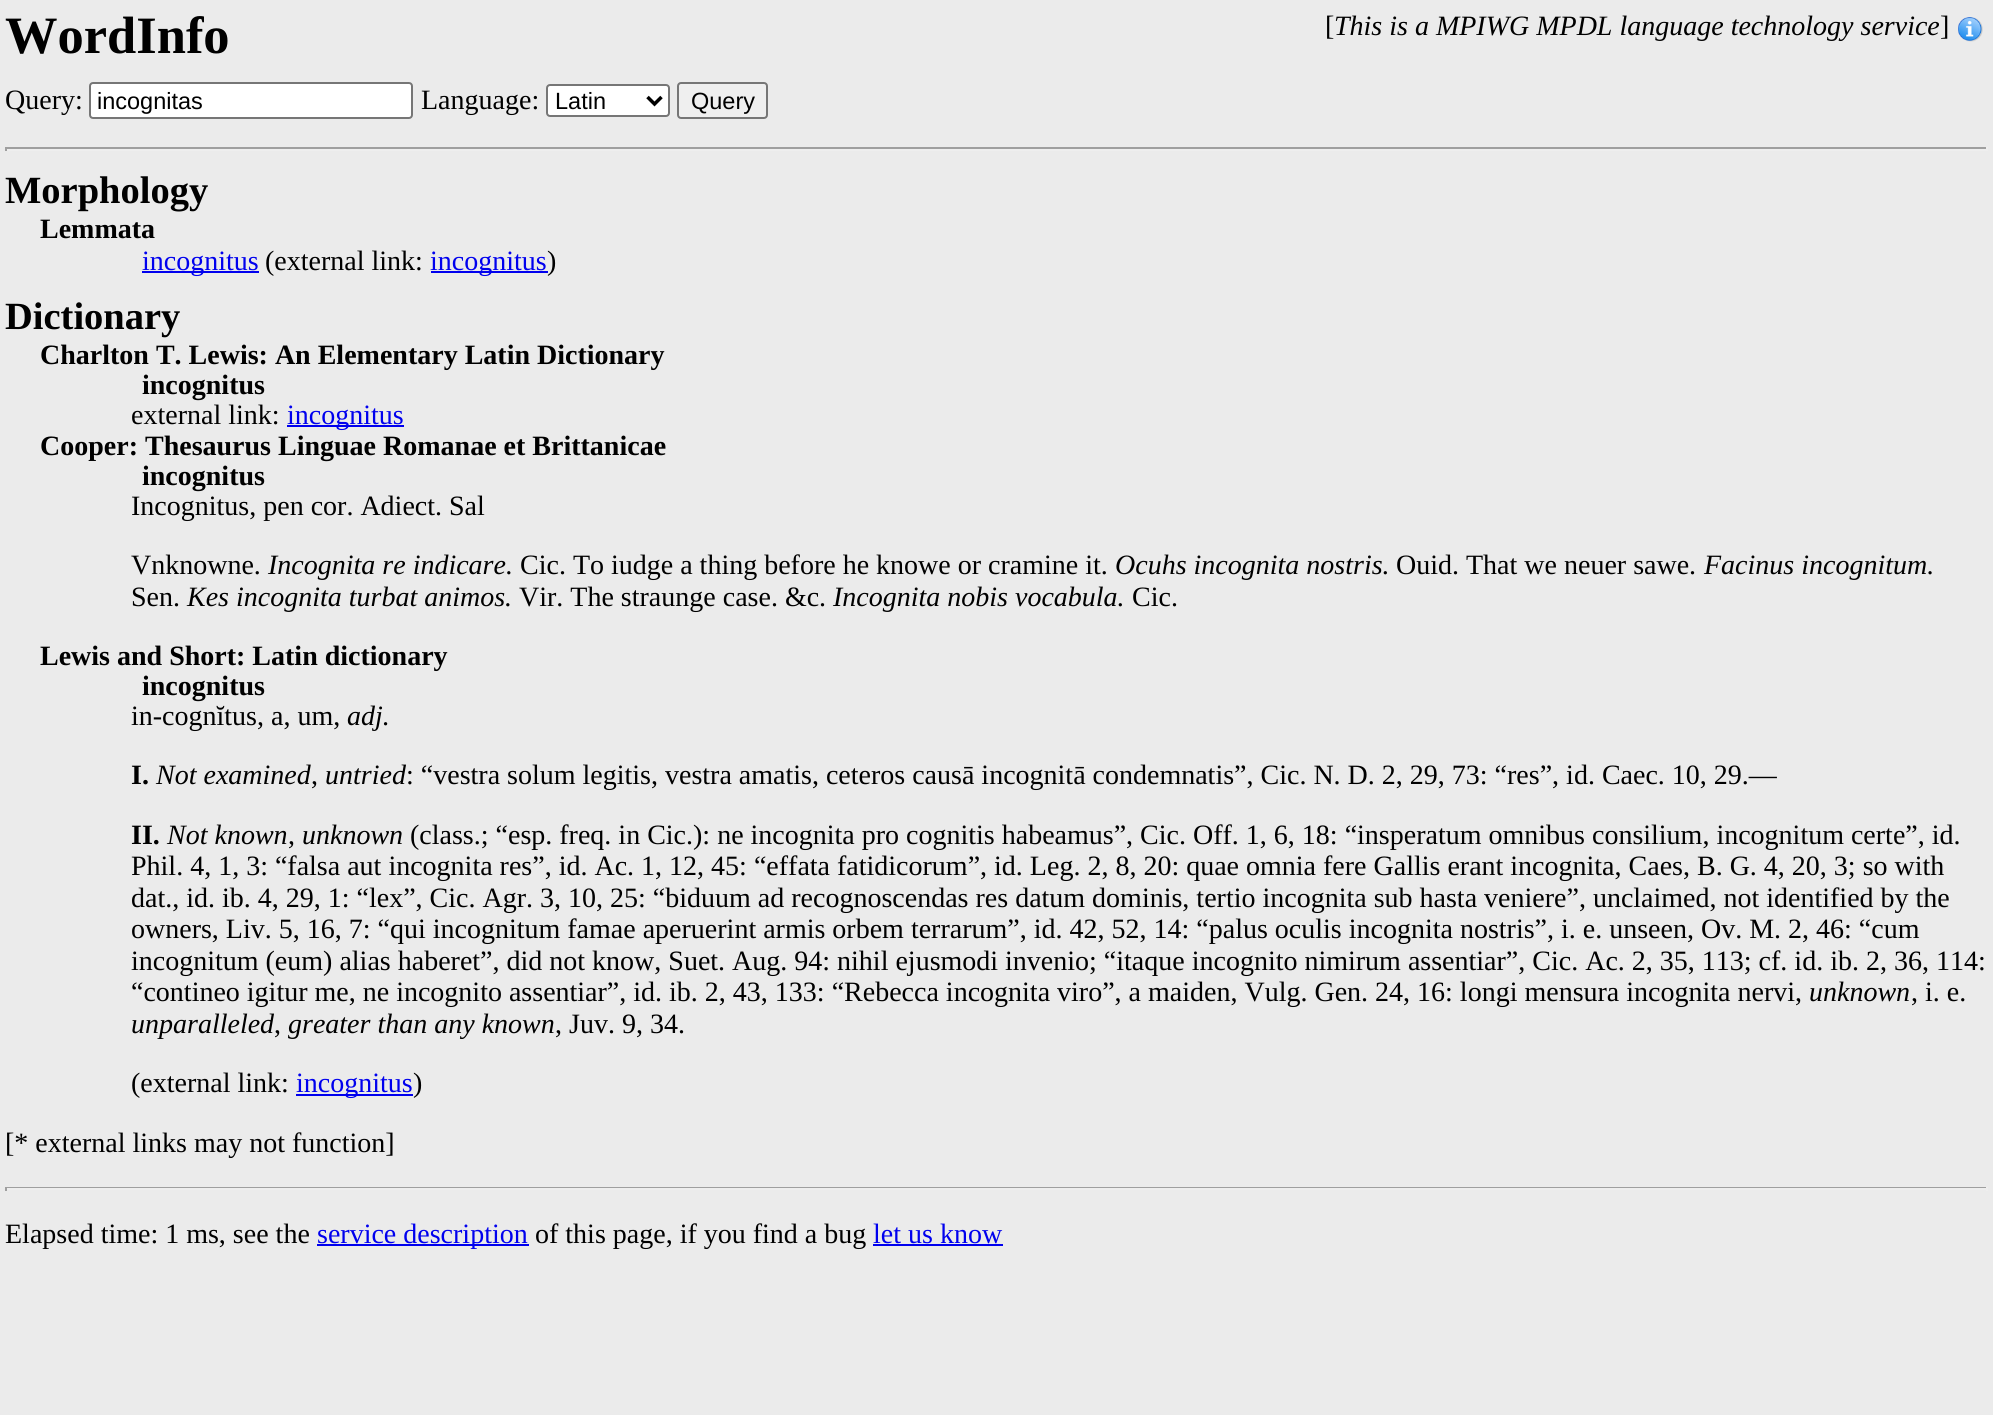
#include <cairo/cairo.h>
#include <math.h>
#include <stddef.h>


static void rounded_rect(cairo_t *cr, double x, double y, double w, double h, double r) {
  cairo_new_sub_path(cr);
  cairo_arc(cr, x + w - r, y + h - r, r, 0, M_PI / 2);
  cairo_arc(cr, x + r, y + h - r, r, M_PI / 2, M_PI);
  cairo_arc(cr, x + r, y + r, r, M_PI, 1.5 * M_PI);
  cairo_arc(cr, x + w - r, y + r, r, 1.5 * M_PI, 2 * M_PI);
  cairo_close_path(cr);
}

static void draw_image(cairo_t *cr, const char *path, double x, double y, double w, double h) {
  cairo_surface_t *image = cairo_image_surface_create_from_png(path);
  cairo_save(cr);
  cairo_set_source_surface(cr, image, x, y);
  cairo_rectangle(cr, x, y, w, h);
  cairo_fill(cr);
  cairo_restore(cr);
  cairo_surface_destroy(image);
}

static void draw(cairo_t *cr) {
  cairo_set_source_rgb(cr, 235 / 255.0, 235 / 255.0, 235 / 255.0);
  cairo_paint(cr);
  draw_image(cr, "images/1.png", 1958, 17, 25, 25);
  cairo_set_source_rgb(cr, 1, 1, 1);
  rounded_rect(cr, 90, 83, 322, 35, 3);
  cairo_fill_preserve(cr);
  cairo_set_source_rgb(cr, 118 / 255.0, 118 / 255.0, 118 / 255.0);
  cairo_stroke(cr);
  cairo_set_source_rgb(cr, 1, 1, 1);
  rounded_rect(cr, 547, 85, 122, 31, 3);
  cairo_fill_preserve(cr);
  cairo_set_source_rgb(cr, 118 / 255.0, 118 / 255.0, 118 / 255.0);
  cairo_stroke(cr);
  cairo_new_path(cr);
  cairo_move_to(cr, 647.5, 97);
  cairo_line_to(cr, 654.5, 104);
  cairo_line_to(cr, 661.5, 97);
  cairo_set_source_rgb(cr, 0, 0, 0);
  cairo_set_line_width(cr, 3.5);
  cairo_stroke(cr);
  cairo_set_source_rgb(cr, 239 / 255.0, 239 / 255.0, 239 / 255.0);
  rounded_rect(cr, 678, 83, 89, 35, 3);
  cairo_fill_preserve(cr);
  cairo_set_source_rgb(cr, 118 / 255.0, 118 / 255.0, 118 / 255.0);
  cairo_set_line_width(cr, 2);
  cairo_stroke(cr);
  cairo_set_source_rgb(cr, 159 / 255.0, 159 / 255.0, 159 / 255.0);
  cairo_rectangle(cr, 5, 147, 1983, 2);
  cairo_fill(cr);
  cairo_set_source_rgb(cr, 238 / 255.0, 238 / 255.0, 238 / 255.0);
  cairo_rectangle(cr, 1986, 147, 2, 4);
  cairo_fill(cr);
  cairo_rectangle(cr, 5, 149, 1983, 2);
  cairo_fill(cr);
  cairo_set_source_rgb(cr, 159 / 255.0, 159 / 255.0, 159 / 255.0);
  cairo_rectangle(cr, 5, 147, 2, 4);
  cairo_fill(cr);
  cairo_set_source_rgb(cr, 0, 0, 238 / 255.0);
  cairo_rectangle(cr, 142, 271, 117, 2);
  cairo_fill(cr);
  cairo_rectangle(cr, 431, 271, 117, 2);
  cairo_fill(cr);
  cairo_rectangle(cr, 287, 425, 117, 2);
  cairo_fill(cr);
  cairo_rectangle(cr, 296, 1094, 117, 2);
  cairo_fill(cr);
  cairo_set_source_rgb(cr, 159 / 255.0, 159 / 255.0, 159 / 255.0);
  cairo_rectangle(cr, 5, 1187, 1983, 1);
  cairo_fill(cr);
  cairo_set_source_rgb(cr, 238 / 255.0, 238 / 255.0, 238 / 255.0);
  cairo_rectangle(cr, 1986, 1187, 2, 4);
  cairo_fill(cr);
  cairo_rectangle(cr, 5, 1188, 1983, 2);
  cairo_fill(cr);
  cairo_set_source_rgb(cr, 159 / 255.0, 159 / 255.0, 159 / 255.0);
  cairo_rectangle(cr, 5, 1187, 2, 4);
  cairo_fill(cr);
  cairo_set_source_rgb(cr, 0, 0, 238 / 255.0);
  cairo_rectangle(cr, 317, 1244, 212, 2);
  cairo_fill(cr);
  cairo_rectangle(cr, 873, 1244, 130, 2);
  cairo_fill(cr);
  cairo_select_font_face(cr, "Liberation Serif", CAIRO_FONT_SLANT_NORMAL, CAIRO_FONT_WEIGHT_BOLD);
  cairo_set_font_size(cr, 52.5);
  cairo_set_source_rgb(cr, 0, 0, 0);
  cairo_move_to(cr, 5, 53);
  cairo_show_text(cr, "WordInfo");
  cairo_select_font_face(cr, "Liberation Serif", CAIRO_FONT_SLANT_NORMAL, CAIRO_FONT_WEIGHT_NORMAL);
  cairo_set_font_size(cr, 28);
  cairo_move_to(cr, 1325, 35);
  cairo_show_text(cr, "[");
  cairo_select_font_face(cr, "Liberation Serif", CAIRO_FONT_SLANT_ITALIC, CAIRO_FONT_WEIGHT_NORMAL);
  cairo_move_to(cr, 1334, 35);
  cairo_show_text(cr, "This is a MPIWG MPDL language technology service");
  cairo_select_font_face(cr, "Liberation Serif", CAIRO_FONT_SLANT_NORMAL, CAIRO_FONT_WEIGHT_NORMAL);
  cairo_move_to(cr, 1940, 35);
  cairo_show_text(cr, "]");
  cairo_move_to(cr, 5, 109);
  cairo_show_text(cr, "Query:");
  cairo_select_font_face(cr, "Liberation Sans", CAIRO_FONT_SLANT_NORMAL, CAIRO_FONT_WEIGHT_NORMAL);
  cairo_set_font_size(cr, 23.5);
  cairo_move_to(cr, 97, 109);
  cairo_show_text(cr, "incognitas");
  cairo_select_font_face(cr, "Liberation Serif", CAIRO_FONT_SLANT_NORMAL, CAIRO_FONT_WEIGHT_NORMAL);
  cairo_set_font_size(cr, 28);
  cairo_move_to(cr, 421, 109);
  cairo_show_text(cr, "Language:");
  cairo_select_font_face(cr, "Liberation Sans", CAIRO_FONT_SLANT_NORMAL, CAIRO_FONT_WEIGHT_NORMAL);
  cairo_set_font_size(cr, 23.5);
  cairo_move_to(cr, 555, 109);
  cairo_show_text(cr, "Latin");
  cairo_move_to(cr, 691, 109);
  cairo_show_text(cr, "Query");
  cairo_select_font_face(cr, "Liberation Serif", CAIRO_FONT_SLANT_NORMAL, CAIRO_FONT_WEIGHT_BOLD);
  cairo_set_font_size(cr, 38.5);
  cairo_move_to(cr, 5, 203);
  cairo_show_text(cr, "Morphology");
  cairo_set_font_size(cr, 28);
  cairo_move_to(cr, 40, 238);
  cairo_show_text(cr, "Lemmata");
  cairo_select_font_face(cr, "Liberation Serif", CAIRO_FONT_SLANT_NORMAL, CAIRO_FONT_WEIGHT_NORMAL);
  cairo_set_source_rgb(cr, 0, 0, 238 / 255.0);
  cairo_move_to(cr, 142, 270);
  cairo_show_text(cr, "incognitus");
  cairo_set_source_rgb(cr, 0, 0, 0);
  cairo_move_to(cr, 265, 270);
  cairo_show_text(cr, "(external link:");
  cairo_set_source_rgb(cr, 0, 0, 238 / 255.0);
  cairo_move_to(cr, 430, 270);
  cairo_show_text(cr, "incognitus");
  cairo_set_source_rgb(cr, 0, 0, 0);
  cairo_move_to(cr, 547, 270);
  cairo_show_text(cr, ")");
  cairo_select_font_face(cr, "Liberation Serif", CAIRO_FONT_SLANT_NORMAL, CAIRO_FONT_WEIGHT_BOLD);
  cairo_set_font_size(cr, 38.5);
  cairo_move_to(cr, 5, 329);
  cairo_show_text(cr, "Dictionary");
  cairo_set_font_size(cr, 28);
  cairo_move_to(cr, 40, 364);
  cairo_show_text(cr, "Charlton T. Lewis: An Elementary Latin Dictionary");
  cairo_move_to(cr, 142, 394);
  cairo_show_text(cr, "incognitus");
  cairo_select_font_face(cr, "Liberation Serif", CAIRO_FONT_SLANT_NORMAL, CAIRO_FONT_WEIGHT_NORMAL);
  cairo_move_to(cr, 131, 424);
  cairo_show_text(cr, "external link:");
  cairo_set_source_rgb(cr, 0, 0, 238 / 255.0);
  cairo_move_to(cr, 287, 424);
  cairo_show_text(cr, "incognitus");
  cairo_select_font_face(cr, "Liberation Serif", CAIRO_FONT_SLANT_NORMAL, CAIRO_FONT_WEIGHT_BOLD);
  cairo_set_source_rgb(cr, 0, 0, 0);
  cairo_move_to(cr, 40, 455);
  cairo_show_text(cr, "Cooper: Thesaurus Linguae Romanae et Brittanicae");
  cairo_move_to(cr, 142, 485);
  cairo_show_text(cr, "incognitus");
  cairo_select_font_face(cr, "Liberation Serif", CAIRO_FONT_SLANT_NORMAL, CAIRO_FONT_WEIGHT_NORMAL);
  cairo_move_to(cr, 131, 515);
  cairo_show_text(cr, "Incognitus, pen cor. Adiect. Sal");
  cairo_move_to(cr, 131, 574);
  cairo_show_text(cr, "Vnknowne.");
  cairo_select_font_face(cr, "Liberation Serif", CAIRO_FONT_SLANT_ITALIC, CAIRO_FONT_WEIGHT_NORMAL);
  cairo_move_to(cr, 268, 574);
  cairo_show_text(cr, "Incognita re indicare.");
  cairo_select_font_face(cr, "Liberation Serif", CAIRO_FONT_SLANT_NORMAL, CAIRO_FONT_WEIGHT_NORMAL);
  cairo_move_to(cr, 520, 574);
  cairo_show_text(cr, "Cic. To iudge a thing before he knowe or cramine it.");
  cairo_select_font_face(cr, "Liberation Serif", CAIRO_FONT_SLANT_ITALIC, CAIRO_FONT_WEIGHT_NORMAL);
  cairo_move_to(cr, 1115, 574);
  cairo_show_text(cr, "Ocuhs incognita nostris.");
  cairo_select_font_face(cr, "Liberation Serif", CAIRO_FONT_SLANT_NORMAL, CAIRO_FONT_WEIGHT_NORMAL);
  cairo_move_to(cr, 1396, 574);
  cairo_show_text(cr, "Ouid. That we neuer sawe.");
  cairo_select_font_face(cr, "Liberation Serif", CAIRO_FONT_SLANT_ITALIC, CAIRO_FONT_WEIGHT_NORMAL);
  cairo_move_to(cr, 1704, 574);
  cairo_show_text(cr, "Facinus incognitum.");
  cairo_select_font_face(cr, "Liberation Serif", CAIRO_FONT_SLANT_NORMAL, CAIRO_FONT_WEIGHT_NORMAL);
  cairo_move_to(cr, 131, 606);
  cairo_show_text(cr, "Sen.");
  cairo_select_font_face(cr, "Liberation Serif", CAIRO_FONT_SLANT_ITALIC, CAIRO_FONT_WEIGHT_NORMAL);
  cairo_move_to(cr, 187, 606);
  cairo_show_text(cr, "Kes incognita turbat animos.");
  cairo_select_font_face(cr, "Liberation Serif", CAIRO_FONT_SLANT_NORMAL, CAIRO_FONT_WEIGHT_NORMAL);
  cairo_move_to(cr, 519, 606);
  cairo_show_text(cr, "Vir. The straunge case. &c.");
  cairo_select_font_face(cr, "Liberation Serif", CAIRO_FONT_SLANT_ITALIC, CAIRO_FONT_WEIGHT_NORMAL);
  cairo_move_to(cr, 833, 606);
  cairo_show_text(cr, "Incognita nobis vocabula.");
  cairo_select_font_face(cr, "Liberation Serif", CAIRO_FONT_SLANT_NORMAL, CAIRO_FONT_WEIGHT_NORMAL);
  cairo_move_to(cr, 1132, 606);
  cairo_show_text(cr, "Cic.");
  cairo_select_font_face(cr, "Liberation Serif", CAIRO_FONT_SLANT_NORMAL, CAIRO_FONT_WEIGHT_BOLD);
  cairo_move_to(cr, 40, 665);
  cairo_show_text(cr, "Lewis and Short: Latin dictionary");
  cairo_move_to(cr, 142, 695);
  cairo_show_text(cr, "incognitus");
  cairo_select_font_face(cr, "Liberation Serif", CAIRO_FONT_SLANT_NORMAL, CAIRO_FONT_WEIGHT_NORMAL);
  cairo_move_to(cr, 131, 725);
  cairo_show_text(cr, "in-cognĭtus, a, um,");
  cairo_select_font_face(cr, "Liberation Serif", CAIRO_FONT_SLANT_ITALIC, CAIRO_FONT_WEIGHT_NORMAL);
  cairo_move_to(cr, 347, 725);
  cairo_show_text(cr, "adj.");
  cairo_select_font_face(cr, "Liberation Serif", CAIRO_FONT_SLANT_NORMAL, CAIRO_FONT_WEIGHT_BOLD);
  cairo_move_to(cr, 131, 784);
  cairo_show_text(cr, "I.");
  cairo_select_font_face(cr, "Liberation Serif", CAIRO_FONT_SLANT_ITALIC, CAIRO_FONT_WEIGHT_NORMAL);
  cairo_move_to(cr, 156, 784);
  cairo_show_text(cr, "Not examined");
  cairo_select_font_face(cr, "Liberation Serif", CAIRO_FONT_SLANT_NORMAL, CAIRO_FONT_WEIGHT_NORMAL);
  cairo_move_to(cr, 311, 784);
  cairo_show_text(cr, ",");
  cairo_select_font_face(cr, "Liberation Serif", CAIRO_FONT_SLANT_ITALIC, CAIRO_FONT_WEIGHT_NORMAL);
  cairo_move_to(cr, 325, 784);
  cairo_show_text(cr, "untried");
  cairo_select_font_face(cr, "Liberation Serif", CAIRO_FONT_SLANT_NORMAL, CAIRO_FONT_WEIGHT_NORMAL);
  cairo_move_to(cr, 406, 784);
  cairo_show_text(cr, ": “vestra solum legitis, vestra amatis, ceteros causā incognitā condemnatis”, Cic. N. D. 2, 29, 73: “res”, id. Caec. 10, 29.—");
  cairo_select_font_face(cr, "Liberation Serif", CAIRO_FONT_SLANT_NORMAL, CAIRO_FONT_WEIGHT_BOLD);
  cairo_move_to(cr, 131, 844);
  cairo_show_text(cr, "II.");
  cairo_select_font_face(cr, "Liberation Serif", CAIRO_FONT_SLANT_ITALIC, CAIRO_FONT_WEIGHT_NORMAL);
  cairo_move_to(cr, 167, 844);
  cairo_show_text(cr, "Not known");
  cairo_select_font_face(cr, "Liberation Serif", CAIRO_FONT_SLANT_NORMAL, CAIRO_FONT_WEIGHT_NORMAL);
  cairo_move_to(cr, 288, 844);
  cairo_show_text(cr, ",");
  cairo_select_font_face(cr, "Liberation Serif", CAIRO_FONT_SLANT_ITALIC, CAIRO_FONT_WEIGHT_NORMAL);
  cairo_move_to(cr, 302, 844);
  cairo_show_text(cr, "unknown");
  cairo_select_font_face(cr, "Liberation Serif", CAIRO_FONT_SLANT_NORMAL, CAIRO_FONT_WEIGHT_NORMAL);
  cairo_move_to(cr, 410, 844);
  cairo_show_text(cr, "(class.; “esp. freq. in Cic.): ne incognita pro cognitis habeamus”, Cic. Off. 1, 6, 18: “insperatum omnibus consilium, incognitum certe”, id.");
  cairo_move_to(cr, 131, 875);
  cairo_show_text(cr, "Phil. 4, 1, 3: “falsa aut incognita res”, id. Ac. 1, 12, 45: “effata fatidicorum”, id. Leg. 2, 8, 20: quae omnia fere Gallis erant incognita, Caes, B. G. 4, 20, 3; so with");
  cairo_move_to(cr, 131, 907);
  cairo_show_text(cr, "dat., id. ib. 4, 29, 1: “lex”, Cic. Agr. 3, 10, 25: “biduum ad recognoscendas res datum dominis, tertio incognita sub hasta veniere”, unclaimed, not identified by the");
  cairo_move_to(cr, 131, 938);
  cairo_show_text(cr, "owners, Liv. 5, 16, 7: “qui incognitum famae aperuerint armis orbem terrarum”, id. 42, 52, 14: “palus oculis incognita nostris”, i. e. unseen, Ov. M. 2, 46: “cum");
  cairo_move_to(cr, 131, 970);
  cairo_show_text(cr, "incognitum (eum) alias haberet”, did not know, Suet. Aug. 94: nihil ejusmodi invenio; “itaque incognito nimirum assentiar”, Cic. Ac. 2, 35, 113; cf. id. ib. 2, 36, 114:");
  cairo_move_to(cr, 131, 1001);
  cairo_show_text(cr, "“contineo igitur me, ne incognito assentiar”, id. ib. 2, 43, 133: “Rebecca incognita viro”, a maiden, Vulg. Gen. 24, 16: longi mensura incognita nervi,");
  cairo_select_font_face(cr, "Liberation Serif", CAIRO_FONT_SLANT_ITALIC, CAIRO_FONT_WEIGHT_NORMAL);
  cairo_move_to(cr, 1809, 1001);
  cairo_show_text(cr, "unknown");
  cairo_select_font_face(cr, "Liberation Serif", CAIRO_FONT_SLANT_NORMAL, CAIRO_FONT_WEIGHT_NORMAL);
  cairo_move_to(cr, 1911, 1001);
  cairo_show_text(cr, ", i. e.");
  cairo_select_font_face(cr, "Liberation Serif", CAIRO_FONT_SLANT_ITALIC, CAIRO_FONT_WEIGHT_NORMAL);
  cairo_move_to(cr, 131, 1033);
  cairo_show_text(cr, "unparalleled");
  cairo_select_font_face(cr, "Liberation Serif", CAIRO_FONT_SLANT_NORMAL, CAIRO_FONT_WEIGHT_NORMAL);
  cairo_move_to(cr, 274, 1033);
  cairo_show_text(cr, ",");
  cairo_select_font_face(cr, "Liberation Serif", CAIRO_FONT_SLANT_ITALIC, CAIRO_FONT_WEIGHT_NORMAL);
  cairo_move_to(cr, 288, 1033);
  cairo_show_text(cr, "greater than any known");
  cairo_select_font_face(cr, "Liberation Serif", CAIRO_FONT_SLANT_NORMAL, CAIRO_FONT_WEIGHT_NORMAL);
  cairo_move_to(cr, 555, 1033);
  cairo_show_text(cr, ", Juv. 9, 34.");
  cairo_move_to(cr, 131, 1092);
  cairo_show_text(cr, "(external link:");
  cairo_set_source_rgb(cr, 0, 0, 238 / 255.0);
  cairo_move_to(cr, 296, 1092);
  cairo_show_text(cr, "incognitus");
  cairo_set_source_rgb(cr, 0, 0, 0);
  cairo_move_to(cr, 413, 1092);
  cairo_show_text(cr, ")");
  cairo_move_to(cr, 5, 1152);
  cairo_show_text(cr, "[* external links may not function]");
  cairo_move_to(cr, 5, 1243);
  cairo_show_text(cr, "Elapsed time: 1 ms, see the");
  cairo_set_source_rgb(cr, 0, 0, 238 / 255.0);
  cairo_move_to(cr, 317, 1243);
  cairo_show_text(cr, "service description");
  cairo_set_source_rgb(cr, 0, 0, 0);
  cairo_move_to(cr, 535, 1243);
  cairo_show_text(cr, "of this page, if you find a bug");
  cairo_set_source_rgb(cr, 0, 0, 238 / 255.0);
  cairo_move_to(cr, 873, 1243);
  cairo_show_text(cr, "let us know");
}

int main(void) {
  cairo_surface_t *surface = cairo_image_surface_create(CAIRO_FORMAT_RGB24, 1993, 1415);
  cairo_t *cr = cairo_create(surface);
  cairo_font_options_t *options = cairo_font_options_create();
  cairo_font_options_set_hint_metrics(options, CAIRO_HINT_METRICS_OFF);
  cairo_font_options_set_hint_style(options, CAIRO_HINT_STYLE_NONE);
  cairo_set_font_options(cr, options);
  cairo_set_miter_limit(cr, 4);
  draw(cr);
  cairo_surface_write_to_png(surface, "out.png");
  cairo_font_options_destroy(options);
  cairo_destroy(cr);
  cairo_surface_destroy(surface);
  return 0;
}
